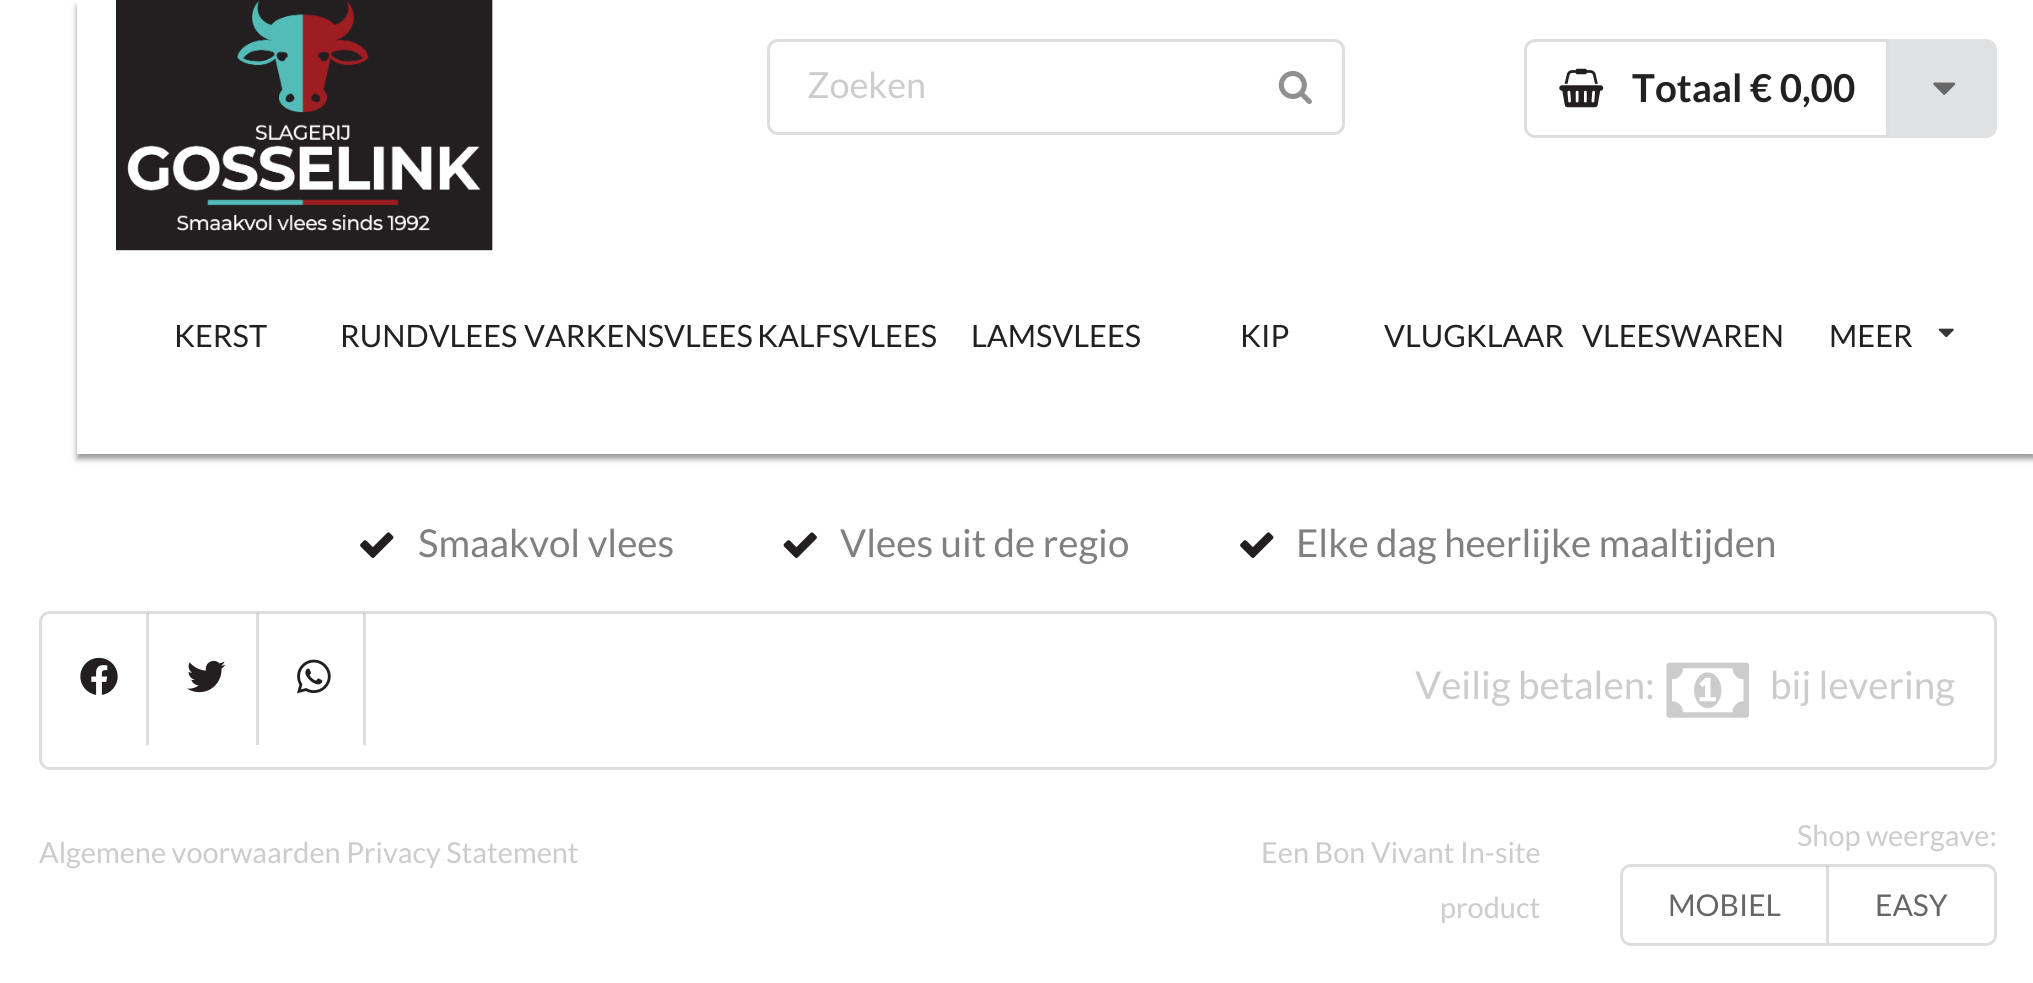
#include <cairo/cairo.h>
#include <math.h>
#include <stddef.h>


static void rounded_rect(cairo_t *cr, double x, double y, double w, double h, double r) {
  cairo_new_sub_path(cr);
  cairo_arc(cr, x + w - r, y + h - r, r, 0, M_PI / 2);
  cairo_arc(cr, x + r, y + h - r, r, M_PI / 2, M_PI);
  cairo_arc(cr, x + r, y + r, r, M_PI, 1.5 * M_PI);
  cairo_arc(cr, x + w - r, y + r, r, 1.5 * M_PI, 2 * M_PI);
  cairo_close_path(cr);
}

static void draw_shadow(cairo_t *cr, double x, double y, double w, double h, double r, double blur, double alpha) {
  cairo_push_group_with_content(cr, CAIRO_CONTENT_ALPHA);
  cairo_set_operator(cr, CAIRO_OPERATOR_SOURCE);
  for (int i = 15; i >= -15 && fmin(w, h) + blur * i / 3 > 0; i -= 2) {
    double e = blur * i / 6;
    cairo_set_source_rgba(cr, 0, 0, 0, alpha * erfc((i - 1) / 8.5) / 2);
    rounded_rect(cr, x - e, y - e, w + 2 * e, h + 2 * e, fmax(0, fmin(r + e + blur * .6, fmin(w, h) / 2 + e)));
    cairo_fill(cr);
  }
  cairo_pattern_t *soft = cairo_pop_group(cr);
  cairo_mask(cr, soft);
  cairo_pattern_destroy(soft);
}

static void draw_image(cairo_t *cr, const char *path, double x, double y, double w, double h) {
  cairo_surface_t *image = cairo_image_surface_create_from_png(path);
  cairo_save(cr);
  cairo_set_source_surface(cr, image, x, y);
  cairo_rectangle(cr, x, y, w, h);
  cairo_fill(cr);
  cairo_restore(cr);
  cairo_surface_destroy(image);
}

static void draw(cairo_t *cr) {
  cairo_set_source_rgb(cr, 1, 1, 1);
  cairo_paint(cr);
  cairo_set_source_rgb(cr, 0, 0, 0);
  draw_shadow(cr, 77, 6, 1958, 453, 0, 3, 0.4);
  cairo_set_source_rgb(cr, 1, 1, 1);
  cairo_rectangle(cr, 77, 0, 1956, 454);
  cairo_fill(cr);
  draw_image(cr, "images/1.png", 116, 0, 377, 251);
  rounded_rect(cr, 768.5, 40.5, 575, 93, 9.5);
  cairo_set_source_rgb(cr, 222 / 255.0, 222 / 255.0, 222 / 255.0);
  cairo_set_line_width(cr, 3);
  cairo_stroke(cr);
  draw_image(cr, "images/2.png", 1278, 70, 34, 35);
  cairo_new_path(cr);
  cairo_move_to(cr, 1535, 40.5);
  cairo_line_to(cr, 1887.5, 40.5);
  cairo_line_to(cr, 1887.5, 136.5);
  cairo_line_to(cr, 1535, 136.5);
  cairo_curve_to(cr, 1530, 136.5, 1525.5, 132, 1525.5, 127);
  cairo_line_to(cr, 1525.5, 50);
  cairo_curve_to(cr, 1525.5, 45, 1530, 40.5, 1535, 40.5);
  cairo_close_path(cr);
  cairo_stroke(cr);
  draw_image(cr, "images/3.png", 1559, 68, 45, 40);
  cairo_set_source_rgb(cr, 224 / 255.0, 225 / 255.0, 226 / 255.0);
  cairo_new_path(cr);
  cairo_move_to(cr, 1889, 39);
  cairo_line_to(cr, 1986, 39);
  cairo_curve_to(cr, 1992, 39, 1997, 44, 1997, 50);
  cairo_line_to(cr, 1997, 127);
  cairo_curve_to(cr, 1997, 133, 1992, 138, 1986, 138);
  cairo_line_to(cr, 1889, 138);
  cairo_close_path(cr);
  cairo_fill(cr);
  draw_image(cr, "images/4.png", 1933, 82, 23, 13);
  draw_image(cr, "images/5.png", 1938, 328, 16, 10);
  draw_image(cr, "images/6.png", 360, 532, 34, 26);
  draw_image(cr, "images/7.png", 783, 532, 34, 26);
  draw_image(cr, "images/6.png", 1240, 532, 34, 26);
  rounded_rect(cr, 40.5, 612.5, 1955, 156, 9.5);
  cairo_set_source_rgb(cr, 222 / 255.0, 222 / 255.0, 222 / 255.0);
  cairo_stroke(cr);
  cairo_set_source_rgba(cr, 34 / 255.0, 36 / 255.0, 38 / 255.0, 0.15);
  cairo_rectangle(cr, 146, 613, 3, 132);
  cairo_fill(cr);
  draw_image(cr, "images/8.png", 80, 657, 38, 38);
  cairo_rectangle(cr, 256, 613, 3, 132);
  cairo_fill(cr);
  draw_image(cr, "images/9.png", 187, 660, 39, 33);
  cairo_rectangle(cr, 363, 613, 3, 132);
  cairo_fill(cr);
  draw_image(cr, "images/10.png", 297, 659, 34, 35);
  draw_image(cr, "images/11.png", 1666, 662, 83, 56);
  rounded_rect(cr, 1621.5, 865.5, 374, 79, 9.5);
  cairo_set_source_rgb(cr, 222 / 255.0, 222 / 255.0, 222 / 255.0);
  cairo_stroke(cr);
  cairo_set_source_rgba(cr, 34 / 255.0, 36 / 255.0, 38 / 255.0, 0.15);
  cairo_rectangle(cr, 1826, 866, 3, 77);
  cairo_fill(cr);
  cairo_select_font_face(cr, "Lato", CAIRO_FONT_SLANT_NORMAL, CAIRO_FONT_WEIGHT_NORMAL);
  cairo_set_font_size(cr, 36);
  cairo_set_source_rgb(cr, 204 / 255.0, 204 / 255.0, 204 / 255.0);
  cairo_move_to(cr, 807, 98);
  cairo_show_text(cr, "Zoeken");
  cairo_select_font_face(cr, "Lato", CAIRO_FONT_SLANT_NORMAL, CAIRO_FONT_WEIGHT_BOLD);
  cairo_set_font_size(cr, 38.5);
  cairo_set_source_rgb(cr, 33 / 255.0, 33 / 255.0, 33 / 255.0);
  cairo_move_to(cr, 1632, 102);
  cairo_show_text(cr, "Totaal € 0,00");
  cairo_select_font_face(cr, "Lato", CAIRO_FONT_SLANT_NORMAL, CAIRO_FONT_WEIGHT_NORMAL);
  cairo_set_font_size(cr, 30.75);
  cairo_move_to(cr, 174, 347);
  cairo_show_text(cr, "KERST");
  cairo_move_to(cr, 340, 347);
  cairo_show_text(cr, "RUNDVLEES");
  cairo_move_to(cr, 524, 347);
  cairo_show_text(cr, "VARKENSVLEES");
  cairo_move_to(cr, 757, 347);
  cairo_show_text(cr, "KALFSVLEES");
  cairo_move_to(cr, 971, 347);
  cairo_show_text(cr, "LAMSVLEES");
  cairo_move_to(cr, 1240, 347);
  cairo_show_text(cr, "KIP");
  cairo_move_to(cr, 1384, 347);
  cairo_show_text(cr, "VLUGKLAAR");
  cairo_move_to(cr, 1582, 347);
  cairo_show_text(cr, "VLEESWAREN");
  cairo_move_to(cr, 1829, 347);
  cairo_show_text(cr, "MEER");
  cairo_set_font_size(cr, 38.5);
  cairo_set_source_rgb(cr, 128 / 255.0, 128 / 255.0, 128 / 255.0);
  cairo_move_to(cr, 418, 557);
  cairo_show_text(cr, "Smaakvol vlees");
  cairo_move_to(cr, 840, 557);
  cairo_show_text(cr, "Vlees uit de regio");
  cairo_move_to(cr, 1296, 557);
  cairo_show_text(cr, "Elke dag heerlijke maaltijden");
  cairo_set_source_rgb(cr, 204 / 255.0, 204 / 255.0, 204 / 255.0);
  cairo_move_to(cr, 1415, 699);
  cairo_show_text(cr, "Veilig betalen:");
  cairo_move_to(cr, 1770, 699);
  cairo_show_text(cr, "bij levering");
  cairo_set_font_size(cr, 28.9);
  cairo_move_to(cr, 39, 863);
  cairo_show_text(cr, "Algemene voorwaarden Privacy Statement");
  cairo_move_to(cr, 1261, 863);
  cairo_show_text(cr, "Een Bon Vivant In-site");
  cairo_move_to(cr, 1440, 918);
  cairo_show_text(cr, "product");
  cairo_move_to(cr, 1797, 846);
  cairo_show_text(cr, "Shop weergave:");
  cairo_set_font_size(cr, 30);
  cairo_set_source_rgb(cr, 102 / 255.0, 102 / 255.0, 102 / 255.0);
  cairo_move_to(cr, 1668, 916);
  cairo_show_text(cr, "MOBIEL");
  cairo_move_to(cr, 1875, 916);
  cairo_show_text(cr, "EASY");
}

int main(void) {
  cairo_surface_t *surface = cairo_image_surface_create(CAIRO_FORMAT_RGB24, 2033, 983);
  cairo_t *cr = cairo_create(surface);
  cairo_font_options_t *options = cairo_font_options_create();
  cairo_font_options_set_hint_metrics(options, CAIRO_HINT_METRICS_OFF);
  cairo_font_options_set_hint_style(options, CAIRO_HINT_STYLE_NONE);
  cairo_set_font_options(cr, options);
  cairo_set_miter_limit(cr, 4);
  draw(cr);
  cairo_surface_write_to_png(surface, "out.png");
  cairo_font_options_destroy(options);
  cairo_destroy(cr);
  cairo_surface_destroy(surface);
  return 0;
}
